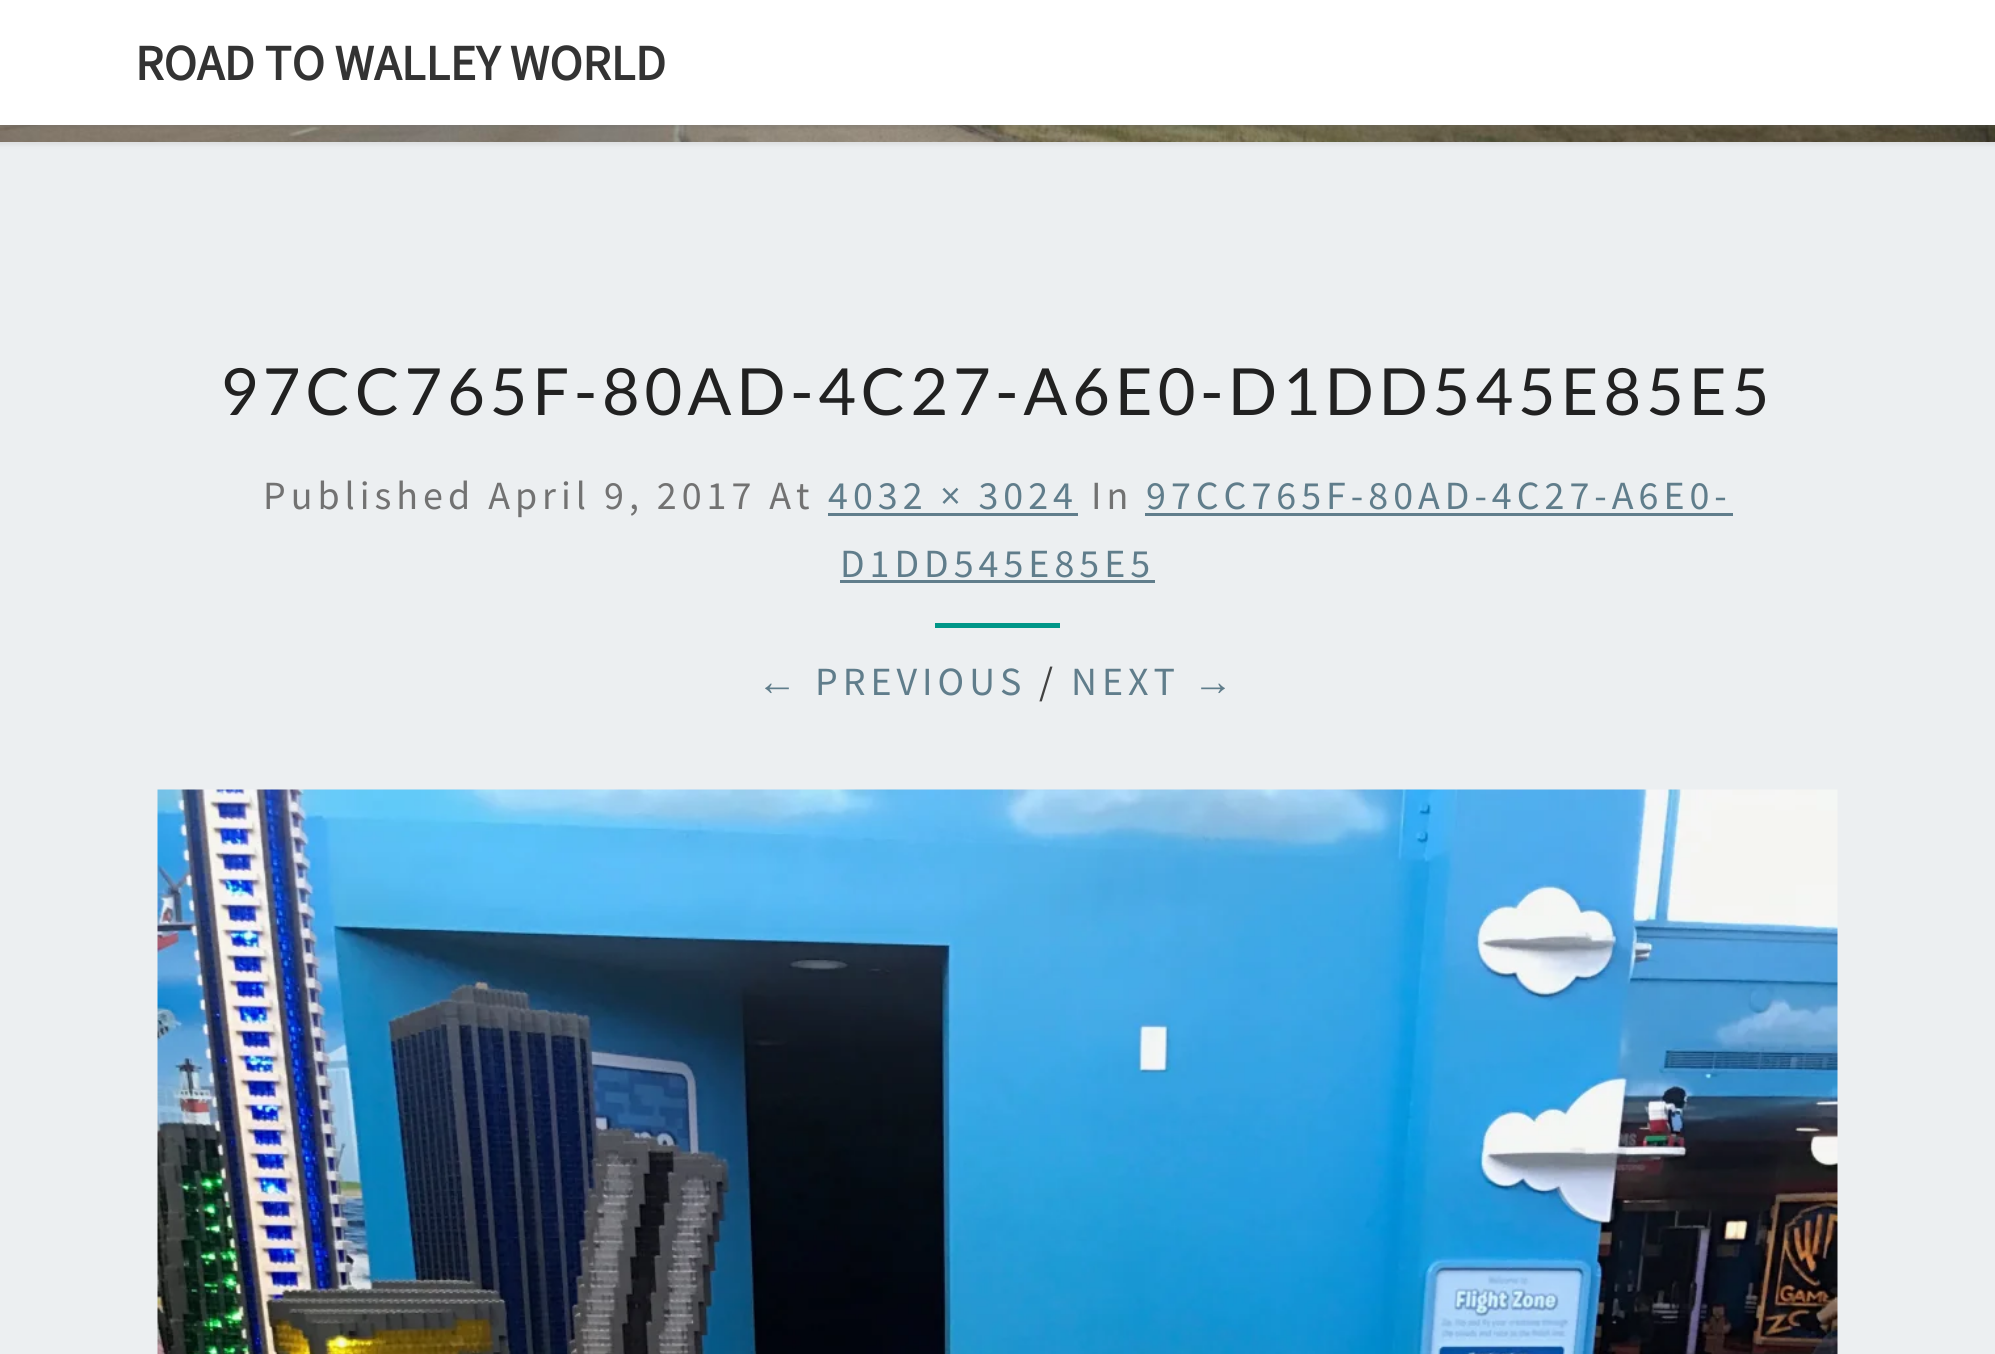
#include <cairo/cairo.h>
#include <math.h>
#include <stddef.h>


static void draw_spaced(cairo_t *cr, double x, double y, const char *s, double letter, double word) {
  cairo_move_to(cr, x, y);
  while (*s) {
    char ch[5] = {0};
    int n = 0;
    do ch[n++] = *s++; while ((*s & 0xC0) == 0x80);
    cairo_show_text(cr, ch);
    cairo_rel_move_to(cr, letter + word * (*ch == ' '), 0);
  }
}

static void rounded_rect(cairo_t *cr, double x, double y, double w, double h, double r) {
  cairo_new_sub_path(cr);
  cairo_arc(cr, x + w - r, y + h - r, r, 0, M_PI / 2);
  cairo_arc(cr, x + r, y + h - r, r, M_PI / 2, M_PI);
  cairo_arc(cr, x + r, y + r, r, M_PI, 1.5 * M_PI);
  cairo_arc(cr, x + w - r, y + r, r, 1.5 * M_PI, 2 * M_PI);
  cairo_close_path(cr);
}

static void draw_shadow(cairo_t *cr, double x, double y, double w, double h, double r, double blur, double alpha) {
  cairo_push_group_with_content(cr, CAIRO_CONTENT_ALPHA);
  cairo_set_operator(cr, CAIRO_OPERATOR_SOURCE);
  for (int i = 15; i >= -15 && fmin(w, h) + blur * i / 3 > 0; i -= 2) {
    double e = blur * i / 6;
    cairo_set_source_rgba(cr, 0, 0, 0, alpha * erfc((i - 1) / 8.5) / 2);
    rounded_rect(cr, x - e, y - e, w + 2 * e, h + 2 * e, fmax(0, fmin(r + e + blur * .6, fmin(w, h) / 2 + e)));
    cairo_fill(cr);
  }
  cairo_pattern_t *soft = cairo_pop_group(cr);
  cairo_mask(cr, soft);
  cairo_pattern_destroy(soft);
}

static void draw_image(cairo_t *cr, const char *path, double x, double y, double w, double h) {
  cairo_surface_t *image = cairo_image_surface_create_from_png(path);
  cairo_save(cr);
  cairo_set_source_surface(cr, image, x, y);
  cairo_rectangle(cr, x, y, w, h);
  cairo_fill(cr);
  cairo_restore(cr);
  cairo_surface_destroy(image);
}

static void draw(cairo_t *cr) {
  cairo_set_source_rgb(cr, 236 / 255.0, 239 / 255.0, 241 / 255.0);
  cairo_paint(cr);
  cairo_set_source_rgb(cr, 182 / 255.0, 182 / 255.0, 182 / 255.0);
  draw_shadow(cr, -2, -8, 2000, 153, 0, 2.5, 0.3);
  draw_image(cr, "images/1.png", 0, 125, 1995, 17);
  cairo_set_source_rgb(cr, 100 / 255.0, 100 / 255.0, 100 / 255.0);
  draw_shadow(cr, 0, 3, 1995, 125, 0, 1, 0.2);
  cairo_set_source_rgb(cr, 1, 1, 1);
  cairo_rectangle(cr, 0, 0, 1995, 125);
  cairo_fill(cr);
  cairo_set_source_rgb(cr, 96 / 255.0, 125 / 255.0, 139 / 255.0);
  cairo_rectangle(cr, 828, 513, 250, 3);
  cairo_fill(cr);
  cairo_rectangle(cr, 1145, 513, 588, 3);
  cairo_fill(cr);
  cairo_rectangle(cr, 840, 580, 315, 3);
  cairo_fill(cr);
  cairo_set_source_rgb(cr, 0, 150 / 255.0, 136 / 255.0);
  cairo_rectangle(cr, 935, 623, 125, 5);
  cairo_fill(cr);
  draw_image(cr, "images/2.png", 157, 789, 1681, 565);
  cairo_select_font_face(cr, "Source Sans Pro", CAIRO_FONT_SLANT_NORMAL, CAIRO_FONT_WEIGHT_BOLD);
  cairo_set_font_size(cr, 50);
  cairo_set_source_rgb(cr, 51 / 255.0, 51 / 255.0, 51 / 255.0);
  cairo_move_to(cr, 135, 80);
  cairo_show_text(cr, "ROAD TO WALLEY WORLD");
  cairo_select_font_face(cr, "Lato", CAIRO_FONT_SLANT_NORMAL, CAIRO_FONT_WEIGHT_NORMAL);
  cairo_set_font_size(cr, 65);
  cairo_set_source_rgb(cr, 33 / 255.0, 33 / 255.0, 33 / 255.0);
  draw_spaced(cr, 220, 415, "97CC765F-80AD-4C27-A6E0-D1DD545E85E5", 5, 0);
  cairo_select_font_face(cr, "Source Sans Pro", CAIRO_FONT_SLANT_NORMAL, CAIRO_FONT_WEIGHT_NORMAL);
  cairo_set_font_size(cr, 40);
  cairo_set_source_rgb(cr, 114 / 255.0, 114 / 255.0, 114 / 255.0);
  draw_spaced(cr, 263, 509, "Published April 9, 2017 At", 5, 0);
  cairo_set_source_rgb(cr, 96 / 255.0, 125 / 255.0, 139 / 255.0);
  draw_spaced(cr, 828, 509, "4032 × 3024", 5, 0);
  cairo_set_source_rgb(cr, 114 / 255.0, 114 / 255.0, 114 / 255.0);
  draw_spaced(cr, 1091, 509, "In", 5, 0);
  cairo_set_source_rgb(cr, 96 / 255.0, 125 / 255.0, 139 / 255.0);
  draw_spaced(cr, 1146, 509, "97CC765F-80AD-4C27-A6E0-", 5, 0);
  draw_spaced(cr, 840, 577, "D1DD545E85E5", 5, 0);
  cairo_select_font_face(cr, "Liberation Sans", CAIRO_FONT_SLANT_NORMAL, CAIRO_FONT_WEIGHT_NORMAL);
  draw_spaced(cr, 757, 695, "←", 5, 0);
  cairo_select_font_face(cr, "Source Sans Pro", CAIRO_FONT_SLANT_NORMAL, CAIRO_FONT_WEIGHT_NORMAL);
  draw_spaced(cr, 815, 695, "PREVIOUS", 5, 0);
  cairo_set_source_rgb(cr, 66 / 255.0, 66 / 255.0, 66 / 255.0);
  draw_spaced(cr, 1039, 695, "/", 5, 0);
  cairo_set_source_rgb(cr, 96 / 255.0, 125 / 255.0, 139 / 255.0);
  draw_spaced(cr, 1071, 695, "NEXT", 5, 0);
  cairo_select_font_face(cr, "Liberation Sans", CAIRO_FONT_SLANT_NORMAL, CAIRO_FONT_WEIGHT_NORMAL);
  draw_spaced(cr, 1193, 695, "→", 5, 0);
}

int main(void) {
  cairo_surface_t *surface = cairo_image_surface_create(CAIRO_FORMAT_RGB24, 1995, 1354);
  cairo_t *cr = cairo_create(surface);
  cairo_font_options_t *options = cairo_font_options_create();
  cairo_font_options_set_hint_metrics(options, CAIRO_HINT_METRICS_OFF);
  cairo_font_options_set_hint_style(options, CAIRO_HINT_STYLE_NONE);
  cairo_set_font_options(cr, options);
  cairo_set_miter_limit(cr, 4);
  draw(cr);
  cairo_surface_write_to_png(surface, "out.png");
  cairo_font_options_destroy(options);
  cairo_destroy(cr);
  cairo_surface_destroy(surface);
  return 0;
}
